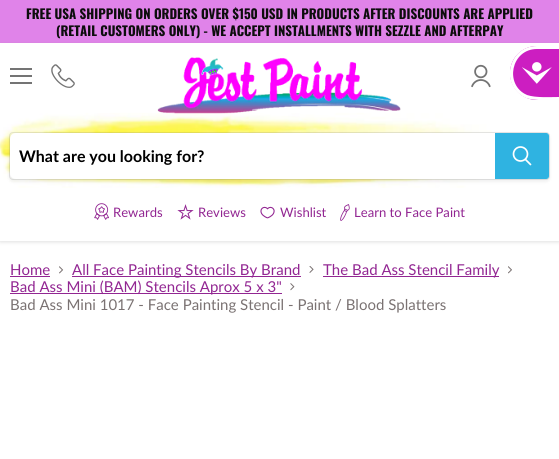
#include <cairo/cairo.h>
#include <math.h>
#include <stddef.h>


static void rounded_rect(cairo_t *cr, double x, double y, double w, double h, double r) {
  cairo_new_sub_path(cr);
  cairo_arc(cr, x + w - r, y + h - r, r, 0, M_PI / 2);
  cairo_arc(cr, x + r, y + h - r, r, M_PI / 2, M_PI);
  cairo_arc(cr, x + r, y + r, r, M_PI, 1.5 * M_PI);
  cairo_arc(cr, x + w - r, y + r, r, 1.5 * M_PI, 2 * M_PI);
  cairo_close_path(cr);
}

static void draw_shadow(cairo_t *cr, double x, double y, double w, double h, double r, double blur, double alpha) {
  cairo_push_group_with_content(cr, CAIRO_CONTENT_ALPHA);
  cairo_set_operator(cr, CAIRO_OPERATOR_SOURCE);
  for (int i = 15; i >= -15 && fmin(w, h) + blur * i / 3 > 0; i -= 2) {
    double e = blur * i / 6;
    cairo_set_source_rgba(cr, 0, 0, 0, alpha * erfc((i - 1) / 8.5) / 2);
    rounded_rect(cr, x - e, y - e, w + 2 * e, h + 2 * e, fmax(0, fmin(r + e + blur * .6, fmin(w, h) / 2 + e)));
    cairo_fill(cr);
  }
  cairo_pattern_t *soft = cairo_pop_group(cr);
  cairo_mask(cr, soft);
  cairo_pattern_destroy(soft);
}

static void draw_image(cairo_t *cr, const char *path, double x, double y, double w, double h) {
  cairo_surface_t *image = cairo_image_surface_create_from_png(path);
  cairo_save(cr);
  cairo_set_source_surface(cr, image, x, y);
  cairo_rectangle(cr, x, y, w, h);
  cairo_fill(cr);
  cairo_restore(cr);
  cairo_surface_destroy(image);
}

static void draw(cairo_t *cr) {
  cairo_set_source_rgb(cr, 1, 1, 1);
  cairo_paint(cr);
  cairo_set_source_rgb(cr, 224 / 255.0, 131 / 255.0, 233 / 255.0);
  cairo_rectangle(cr, 0, 0, 559, 43);
  cairo_fill(cr);
  cairo_set_source_rgb(cr, 128 / 255.0, 128 / 255.0, 128 / 255.0);
  draw_shadow(cr, 0, 44, 559, 198, 0, 2, 0.25);
  cairo_set_source_rgb(cr, 1, 1, 1);
  cairo_rectangle(cr, 0, 43, 559, 198);
  cairo_fill(cr);
  cairo_set_source_rgb(cr, 204 / 255.0, 30 / 255.0, 193 / 255.0);
  cairo_new_path(cr);
  cairo_move_to(cr, 537, 46);
  cairo_line_to(cr, 559, 46);
  cairo_line_to(cr, 559, 100);
  cairo_line_to(cr, 537, 100);
  cairo_curve_to(cr, 522, 100, 510, 88, 510, 73);
  cairo_curve_to(cr, 510, 58, 522, 46, 537, 46);
  cairo_close_path(cr);
  cairo_fill(cr);
  cairo_set_source_rgb(cr, 1, 1, 1);
  cairo_set_fill_rule(cr, CAIRO_FILL_RULE_EVEN_ODD);
  cairo_new_path(cr);
  cairo_move_to(cr, 537, 46);
  cairo_line_to(cr, 559, 46);
  cairo_line_to(cr, 559, 100);
  cairo_curve_to(cr, 549, 100, 535, 101, 526, 98);
  cairo_curve_to(cr, 499, 86, 508, 46, 537, 46);
  cairo_close_path(cr);
  cairo_move_to(cr, 537, 49);
  cairo_line_to(cr, 559, 49);
  cairo_line_to(cr, 559, 97);
  cairo_curve_to(cr, 550, 97, 536, 98, 527, 95);
  cairo_curve_to(cr, 504, 85, 511, 49, 537, 49);
  cairo_close_path(cr);
  cairo_fill(cr);
  draw_image(cr, "images/1.png", 522, 62, 30, 22);
  cairo_set_source_rgb(cr, 116 / 255.0, 116 / 255.0, 116 / 255.0);
  cairo_rectangle(cr, 10, 68, 22, 2);
  cairo_fill(cr);
  cairo_rectangle(cr, 10, 75, 22, 2);
  cairo_fill(cr);
  cairo_rectangle(cr, 10, 82, 22, 2);
  cairo_fill(cr);
  draw_image(cr, "images/2.png", 51, 64, 24, 24);
  draw_image(cr, "images/3.png", 471, 64, 20, 24);
  draw_image(cr, "images/4.png", 157, 57, 244, 57);
  draw_image(cr, "images/5.png", 0, 112, 492, 76);
  cairo_set_source_rgb(cr, 128 / 255.0, 128 / 255.0, 128 / 255.0);
  draw_shadow(cr, 9, 134, 541, 48, 4, 1.5, 0.11);
  rounded_rect(cr, 9.5, 132.5, 540, 47, 3.5);
  cairo_set_source_rgba(cr, 128 / 255.0, 128 / 255.0, 128 / 255.0, 0.2);
  cairo_set_line_width(cr, 1);
  cairo_stroke(cr);
  cairo_set_source_rgb(cr, 1, 1, 1);
  cairo_new_path(cr);
  cairo_move_to(cr, 16, 133);
  cairo_line_to(cr, 495, 133);
  cairo_line_to(cr, 495, 179);
  cairo_line_to(cr, 16, 179);
  cairo_curve_to(cr, 12.5, 179, 10, 176.5, 10, 173);
  cairo_line_to(cr, 10, 139);
  cairo_curve_to(cr, 10, 135.5, 12.5, 133, 16, 133);
  cairo_close_path(cr);
  cairo_fill(cr);
  cairo_set_source_rgb(cr, 47 / 255.0, 179 / 255.0, 225 / 255.0);
  cairo_new_path(cr);
  cairo_move_to(cr, 495.5, 133.5);
  cairo_line_to(cr, 546, 133.5);
  cairo_curve_to(cr, 547.5, 133.5, 548.5, 134.5, 548.5, 136);
  cairo_line_to(cr, 548.5, 176);
  cairo_curve_to(cr, 548.5, 177.5, 547.5, 178.5, 546, 178.5);
  cairo_line_to(cr, 495.5, 178.5);
  cairo_close_path(cr);
  cairo_fill_preserve(cr);
  cairo_stroke(cr);
  cairo_new_path(cr);
  cairo_move_to(cr, 530.5, 164.5);
  cairo_line_to(cr, 525.5, 159.5);
  cairo_set_source_rgb(cr, 1, 1, 1);
  cairo_set_line_width(cr, 1.7);
  cairo_set_line_cap(cr, CAIRO_LINE_CAP_ROUND);
  cairo_stroke(cr);
  cairo_arc(cr, 520.5, 154, 7, 0, 2 * M_PI);
  cairo_set_line_cap(cr, CAIRO_LINE_CAP_BUTT);
  cairo_stroke(cr);
  draw_image(cr, "images/6.png", 94, 203, 15, 17);
  draw_image(cr, "images/7.png", 177, 204, 17, 16);
  draw_image(cr, "images/8.png", 260, 206, 15, 13);
  draw_image(cr, "images/9.png", 340, 204, 10, 17);
  cairo_set_source_rgb(cr, 146 / 255.0, 38 / 255.0, 146 / 255.0);
  cairo_rectangle(cr, 10, 276, 40, 1);
  cairo_fill(cr);
  draw_image(cr, "images/10.png", 59, 266, 5, 8);
  cairo_rectangle(cr, 72, 276, 229, 1);
  cairo_fill(cr);
  draw_image(cr, "images/11.png", 309, 266, 5, 7);
  cairo_rectangle(cr, 323, 276, 176, 1);
  cairo_fill(cr);
  draw_image(cr, "images/12.png", 508, 266, 4, 8);
  cairo_rectangle(cr, 10, 293, 272, 1);
  cairo_fill(cr);
  draw_image(cr, "images/13.png", 290, 283, 5, 8);
  cairo_select_font_face(cr, "Oswald", CAIRO_FONT_SLANT_NORMAL, CAIRO_FONT_WEIGHT_BOLD);
  cairo_set_font_size(cr, 13.1);
  cairo_set_source_rgb(cr, 13 / 255.0, 13 / 255.0, 13 / 255.0);
  cairo_move_to(cr, 26, 19);
  cairo_show_text(cr, "FREE USA SHIPPING ON ORDERS OVER $150 USD IN PRODUCTS AFTER DISCOUNTS ARE APPLIED");
  cairo_move_to(cr, 56, 36);
  cairo_show_text(cr, "(RETAIL CUSTOMERS ONLY) - WE ACCEPT INSTALLMENTS WITH SEZZLE AND AFTERPAY");
  cairo_select_font_face(cr, "Lato", CAIRO_FONT_SLANT_NORMAL, CAIRO_FONT_WEIGHT_BOLD);
  cairo_set_font_size(cr, 16);
  cairo_set_source_rgb(cr, 0, 0, 0);
  cairo_move_to(cr, 19, 162);
  cairo_show_text(cr, "What are you looking for?");
  cairo_select_font_face(cr, "Lato", CAIRO_FONT_SLANT_NORMAL, CAIRO_FONT_WEIGHT_NORMAL);
  cairo_set_font_size(cr, 13.1);
  cairo_set_source_rgb(cr, 146 / 255.0, 38 / 255.0, 146 / 255.0);
  cairo_move_to(cr, 113, 217);
  cairo_show_text(cr, "Rewards");
  cairo_move_to(cr, 198, 217);
  cairo_show_text(cr, "Reviews");
  cairo_move_to(cr, 280, 217);
  cairo_show_text(cr, "Wishlist");
  cairo_move_to(cr, 354, 217);
  cairo_show_text(cr, "Learn to Face Paint");
  cairo_set_font_size(cr, 15);
  cairo_move_to(cr, 10, 275);
  cairo_show_text(cr, "Home");
  cairo_move_to(cr, 72, 275);
  cairo_show_text(cr, "All Face Painting Stencils By Brand");
  cairo_move_to(cr, 323, 275);
  cairo_show_text(cr, "The Bad Ass Stencil Family");
  cairo_move_to(cr, 10, 292);
  cairo_show_text(cr, "Bad Ass Mini (BAM) Stencils Aprox 5 x 3\"");
  cairo_set_source_rgb(cr, 122 / 255.0, 114 / 255.0, 114 / 255.0);
  cairo_move_to(cr, 10, 310);
  cairo_show_text(cr, "Bad Ass Mini 1017 - Face Painting Stencil - Paint / Blood Splatters");
}

int main(void) {
  cairo_surface_t *surface = cairo_image_surface_create(CAIRO_FORMAT_RGB24, 559, 459);
  cairo_t *cr = cairo_create(surface);
  cairo_font_options_t *options = cairo_font_options_create();
  cairo_font_options_set_hint_metrics(options, CAIRO_HINT_METRICS_OFF);
  cairo_font_options_set_hint_style(options, CAIRO_HINT_STYLE_NONE);
  cairo_set_font_options(cr, options);
  cairo_set_miter_limit(cr, 4);
  draw(cr);
  cairo_surface_write_to_png(surface, "out.png");
  cairo_font_options_destroy(options);
  cairo_destroy(cr);
  cairo_surface_destroy(surface);
  return 0;
}
